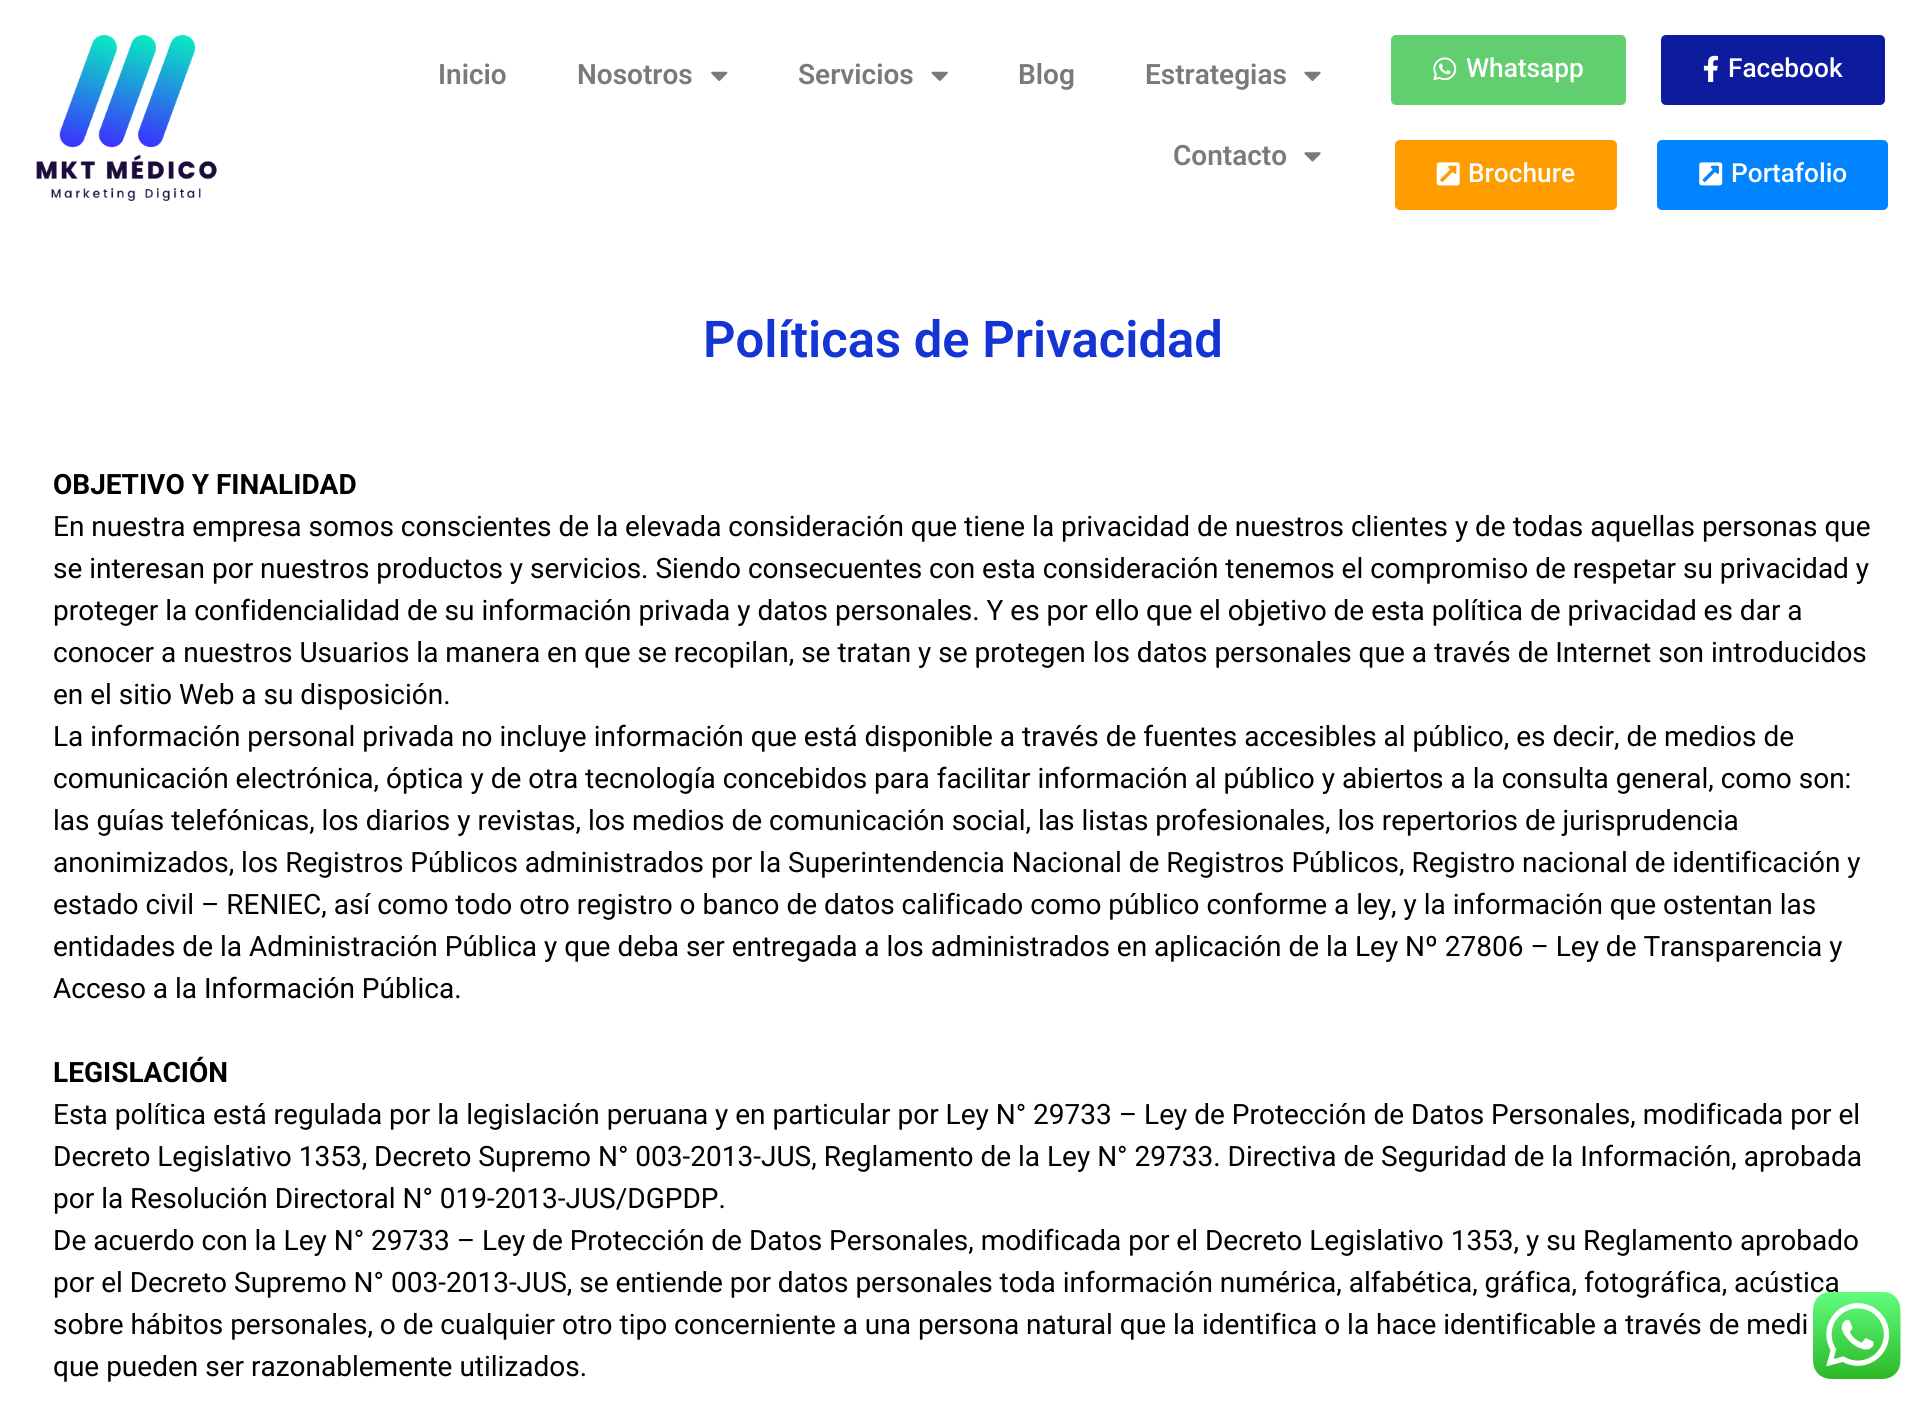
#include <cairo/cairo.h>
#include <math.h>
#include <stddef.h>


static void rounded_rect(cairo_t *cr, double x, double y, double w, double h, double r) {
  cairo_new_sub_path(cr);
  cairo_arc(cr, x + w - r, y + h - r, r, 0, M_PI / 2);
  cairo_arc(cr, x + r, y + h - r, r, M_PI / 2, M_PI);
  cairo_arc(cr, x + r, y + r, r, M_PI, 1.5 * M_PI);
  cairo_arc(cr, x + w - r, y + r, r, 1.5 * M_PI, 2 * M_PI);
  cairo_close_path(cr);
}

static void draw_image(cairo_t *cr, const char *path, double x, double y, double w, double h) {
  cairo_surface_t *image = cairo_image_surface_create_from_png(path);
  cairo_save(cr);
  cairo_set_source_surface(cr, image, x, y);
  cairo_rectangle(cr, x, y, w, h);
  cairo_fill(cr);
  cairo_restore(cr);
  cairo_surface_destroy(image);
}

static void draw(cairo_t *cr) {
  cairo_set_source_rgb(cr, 1, 1, 1);
  cairo_paint(cr);
  draw_image(cr, "images/1.png", 36, 35, 181, 166);
  draw_image(cr, "images/2.png", 711, 71, 17, 10);
  draw_image(cr, "images/3.png", 931, 71, 17, 10);
  draw_image(cr, "images/4.png", 1304, 71, 17, 10);
  draw_image(cr, "images/5.png", 1304, 152, 17, 10);
  cairo_set_source_rgb(cr, 97 / 255.0, 206 / 255.0, 112 / 255.0);
  rounded_rect(cr, 1391, 35, 235, 70, 5);
  cairo_fill(cr);
  draw_image(cr, "images/6.png", 1433, 57, 24, 24);
  cairo_set_source_rgb(cr, 1, 156 / 255.0, 0);
  rounded_rect(cr, 1395, 140, 222, 70, 5);
  cairo_fill(cr);
  draw_image(cr, "images/7.png", 1436, 162, 24, 24);
  cairo_set_source_rgb(cr, 13 / 255.0, 27 / 255.0, 157 / 255.0);
  rounded_rect(cr, 1661, 35, 224, 70, 5);
  cairo_fill(cr);
  draw_image(cr, "images/8.png", 1703, 55, 15, 27);
  cairo_set_source_rgb(cr, 0, 132 / 255.0, 1);
  rounded_rect(cr, 1657, 140, 231, 70, 5);
  cairo_fill(cr);
  draw_image(cr, "images/9.png", 1699, 162, 24, 24);
  cairo_select_font_face(cr, "Roboto SemiBold", CAIRO_FONT_SLANT_NORMAL, CAIRO_FONT_WEIGHT_NORMAL);
  cairo_set_font_size(cr, 28);
  cairo_set_source_rgb(cr, 122 / 255.0, 122 / 255.0, 122 / 255.0);
  cairo_move_to(cr, 438, 84);
  cairo_show_text(cr, "Inicio");
  cairo_move_to(cr, 577, 84);
  cairo_show_text(cr, "Nosotros");
  cairo_move_to(cr, 798, 84);
  cairo_show_text(cr, "Servicios");
  cairo_move_to(cr, 1018, 84);
  cairo_show_text(cr, "Blog");
  cairo_move_to(cr, 1145, 84);
  cairo_show_text(cr, "Estrategias");
  cairo_move_to(cr, 1173, 165);
  cairo_show_text(cr, "Contacto");
  cairo_select_font_face(cr, "Roboto Medium", CAIRO_FONT_SLANT_NORMAL, CAIRO_FONT_WEIGHT_NORMAL);
  cairo_set_font_size(cr, 26.25);
  cairo_set_source_rgb(cr, 1, 1, 1);
  cairo_move_to(cr, 1466, 77);
  cairo_show_text(cr, "Whatsapp");
  cairo_move_to(cr, 1468, 182);
  cairo_show_text(cr, "Brochure");
  cairo_move_to(cr, 1728, 77);
  cairo_show_text(cr, "Facebook");
  cairo_move_to(cr, 1731, 182);
  cairo_show_text(cr, "Portafolio");
  cairo_select_font_face(cr, "Roboto SemiBold", CAIRO_FONT_SLANT_NORMAL, CAIRO_FONT_WEIGHT_NORMAL);
  cairo_set_font_size(cr, 50.75);
  cairo_set_source_rgb(cr, 20 / 255.0, 53 / 255.0, 211 / 255.0);
  cairo_move_to(cr, 703, 357);
  cairo_show_text(cr, "Políticas de Privacidad");
  cairo_select_font_face(cr, "Roboto", CAIRO_FONT_SLANT_NORMAL, CAIRO_FONT_WEIGHT_BOLD);
  cairo_set_font_size(cr, 28);
  cairo_set_source_rgb(cr, 0, 0, 0);
  cairo_move_to(cr, 53, 494);
  cairo_show_text(cr, "OBJETIVO Y FINALIDAD");
  cairo_select_font_face(cr, "Roboto", CAIRO_FONT_SLANT_NORMAL, CAIRO_FONT_WEIGHT_NORMAL);
  cairo_move_to(cr, 53, 536);
  cairo_show_text(cr, "En nuestra empresa somos conscientes de la elevada consideración que tiene la privacidad de nuestros clientes y de todas aquellas personas que");
  cairo_move_to(cr, 53, 578);
  cairo_show_text(cr, "se interesan por nuestros productos y servicios. Siendo consecuentes con esta consideración tenemos el compromiso de respetar su privacidad y");
  cairo_move_to(cr, 53, 620);
  cairo_show_text(cr, "proteger la confidencialidad de su información privada y datos personales. Y es por ello que el objetivo de esta política de privacidad es dar a");
  cairo_move_to(cr, 53, 662);
  cairo_show_text(cr, "conocer a nuestros Usuarios la manera en que se recopilan, se tratan y se protegen los datos personales que a través de Internet son introducidos");
  cairo_move_to(cr, 53, 704);
  cairo_show_text(cr, "en el sitio Web a su disposición.");
  cairo_move_to(cr, 53, 746);
  cairo_show_text(cr, "La información personal privada no incluye información que está disponible a través de fuentes accesibles al público, es decir, de medios de");
  cairo_move_to(cr, 53, 788);
  cairo_show_text(cr, "comunicación electrónica, óptica y de otra tecnología concebidos para facilitar información al público y abiertos a la consulta general, como son:");
  cairo_move_to(cr, 53, 830);
  cairo_show_text(cr, "las guías telefónicas, los diarios y revistas, los medios de comunicación social, las listas profesionales, los repertorios de jurisprudencia");
  cairo_move_to(cr, 53, 872);
  cairo_show_text(cr, "anonimizados, los Registros Públicos administrados por la Superintendencia Nacional de Registros Públicos, Registro nacional de identificación y");
  cairo_move_to(cr, 53, 914);
  cairo_show_text(cr, "estado civil – RENIEC, así como todo otro registro o banco de datos calificado como público conforme a ley, y la información que ostentan las");
  cairo_move_to(cr, 53, 956);
  cairo_show_text(cr, "entidades de la Administración Pública y que deba ser entregada a los administrados en aplicación de la Ley Nº 27806 – Ley de Transparencia y");
  cairo_move_to(cr, 53, 998);
  cairo_show_text(cr, "Acceso a la Información Pública.");
  cairo_select_font_face(cr, "Roboto", CAIRO_FONT_SLANT_NORMAL, CAIRO_FONT_WEIGHT_BOLD);
  cairo_move_to(cr, 53, 1082);
  cairo_show_text(cr, "LEGISLACIÓN");
  cairo_select_font_face(cr, "Roboto", CAIRO_FONT_SLANT_NORMAL, CAIRO_FONT_WEIGHT_NORMAL);
  cairo_move_to(cr, 53, 1124);
  cairo_show_text(cr, "Esta política está regulada por la legislación peruana y en particular por Ley N° 29733 – Ley de Protección de Datos Personales, modificada por el");
  cairo_move_to(cr, 53, 1166);
  cairo_show_text(cr, "Decreto Legislativo 1353, Decreto Supremo N° 003-2013-JUS, Reglamento de la Ley N° 29733. Directiva de Seguridad de la Información, aprobada");
  cairo_move_to(cr, 53, 1208);
  cairo_show_text(cr, "por la Resolución Directoral N° 019-2013-JUS/DGPDP.");
  cairo_move_to(cr, 53, 1250);
  cairo_show_text(cr, "De acuerdo con la Ley N° 29733 – Ley de Protección de Datos Personales, modificada por el Decreto Legislativo 1353, y su Reglamento aprobado");
  cairo_move_to(cr, 53, 1292);
  cairo_show_text(cr, "por el Decreto Supremo N° 003-2013-JUS, se entiende por datos personales toda información numérica, alfabética, gráfica, fotográfica, acústica");
  cairo_move_to(cr, 53, 1334);
  cairo_show_text(cr, "sobre hábitos personales, o de cualquier otro tipo concerniente a una persona natural que la identifica o la hace identificable a través de medi");
  cairo_move_to(cr, 53, 1376);
  cairo_show_text(cr, "que pueden ser razonablemente utilizados.");
  draw_image(cr, "images/10.png", 1813, 1292, 88, 87);
}

int main(void) {
  cairo_surface_t *surface = cairo_image_surface_create(CAIRO_FORMAT_RGB24, 1926, 1405);
  cairo_t *cr = cairo_create(surface);
  cairo_font_options_t *options = cairo_font_options_create();
  cairo_font_options_set_hint_metrics(options, CAIRO_HINT_METRICS_OFF);
  cairo_font_options_set_hint_style(options, CAIRO_HINT_STYLE_NONE);
  cairo_set_font_options(cr, options);
  cairo_set_miter_limit(cr, 4);
  draw(cr);
  cairo_surface_write_to_png(surface, "out.png");
  cairo_font_options_destroy(options);
  cairo_destroy(cr);
  cairo_surface_destroy(surface);
  return 0;
}
